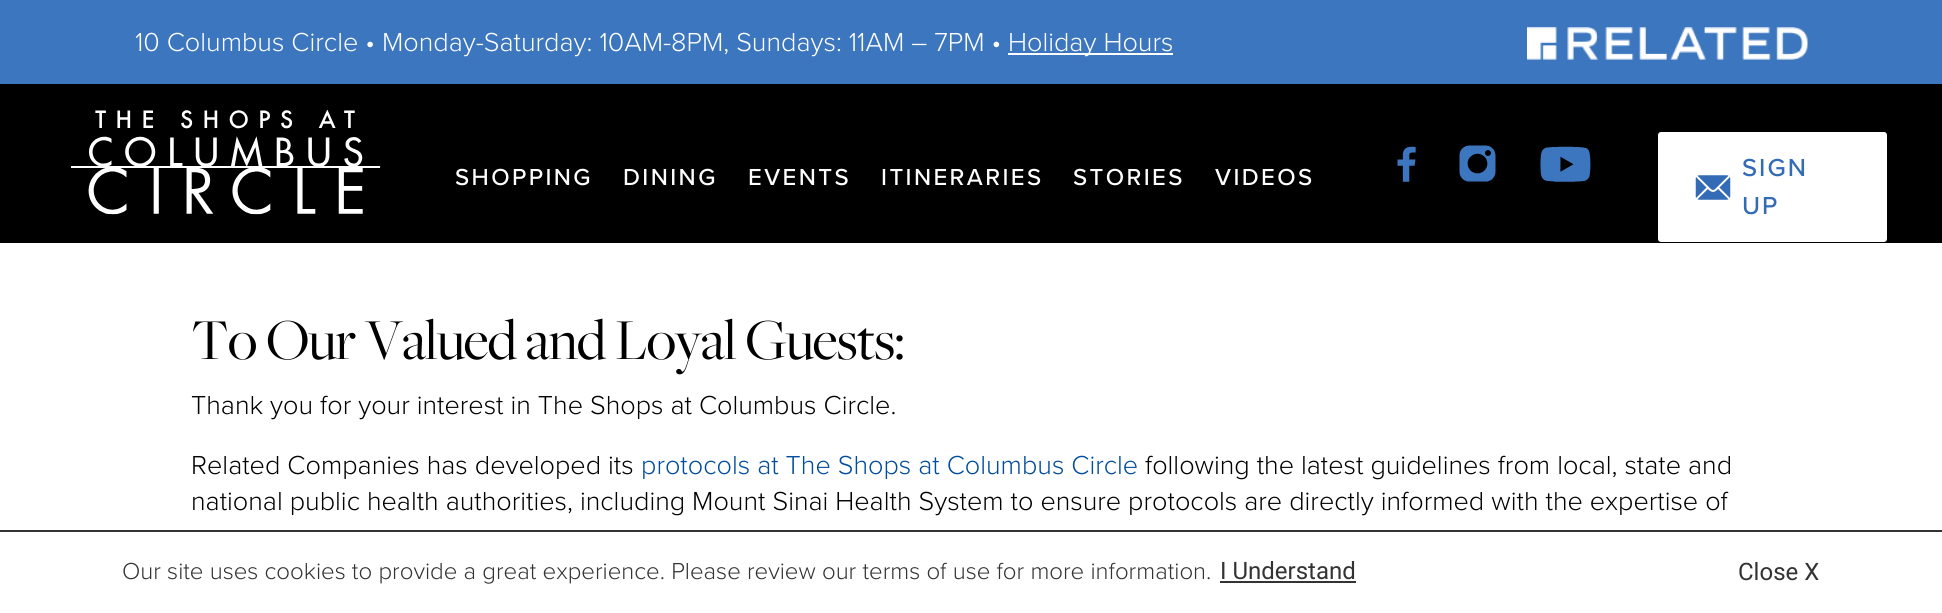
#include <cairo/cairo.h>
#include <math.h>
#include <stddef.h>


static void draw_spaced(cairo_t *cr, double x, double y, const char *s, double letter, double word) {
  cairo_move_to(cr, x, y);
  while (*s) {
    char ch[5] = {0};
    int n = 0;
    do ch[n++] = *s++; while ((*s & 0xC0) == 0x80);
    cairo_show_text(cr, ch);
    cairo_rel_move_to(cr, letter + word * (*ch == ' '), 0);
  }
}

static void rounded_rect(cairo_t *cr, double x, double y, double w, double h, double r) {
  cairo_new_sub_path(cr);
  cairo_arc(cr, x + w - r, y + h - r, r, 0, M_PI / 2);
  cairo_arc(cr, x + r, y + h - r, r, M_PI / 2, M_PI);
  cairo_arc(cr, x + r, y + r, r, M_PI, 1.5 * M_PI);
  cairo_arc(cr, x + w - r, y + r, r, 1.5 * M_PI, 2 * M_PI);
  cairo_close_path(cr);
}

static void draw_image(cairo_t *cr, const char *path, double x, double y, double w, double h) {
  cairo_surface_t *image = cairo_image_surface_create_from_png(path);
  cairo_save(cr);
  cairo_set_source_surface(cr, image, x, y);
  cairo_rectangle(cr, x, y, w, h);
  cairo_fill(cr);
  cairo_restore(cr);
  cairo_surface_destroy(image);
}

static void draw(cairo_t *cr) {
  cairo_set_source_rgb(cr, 1, 1, 1);
  cairo_paint(cr);
  cairo_set_source_rgb(cr, 60 / 255.0, 118 / 255.0, 191 / 255.0);
  cairo_rectangle(cr, 0, 0, 1942, 84);
  cairo_fill(cr);
  cairo_set_source_rgb(cr, 1, 1, 1);
  cairo_rectangle(cr, 1008, 53, 165, 2);
  cairo_fill(cr);
  draw_image(cr, "images/1.png", 1527, 27, 281, 33);
  cairo_set_source_rgb(cr, 0, 0, 0);
  cairo_rectangle(cr, 0, 84, 1942, 159);
  cairo_fill(cr);
  draw_image(cr, "images/2.png", 71, 109, 310, 106);
  draw_image(cr, "images/3.png", 1397, 146, 19, 36);
  draw_image(cr, "images/4.png", 1459, 145, 37, 37);
  draw_image(cr, "images/5.png", 1540, 146, 51, 36);
  cairo_set_source_rgb(cr, 1, 1, 1);
  rounded_rect(cr, 1659, 133, 227, 108, 2);
  cairo_fill_preserve(cr);
  cairo_stroke(cr);
  draw_image(cr, "images/6.png", 1695, 175, 36, 25);
  cairo_set_source_rgb(cr, 51 / 255.0, 51 / 255.0, 51 / 255.0);
  cairo_rectangle(cr, 0, 530, 1942, 2);
  cairo_fill(cr);
  cairo_rectangle(cr, 1220, 581, 136, 2);
  cairo_fill(cr);
  cairo_select_font_face(cr, "Proxima Nova Light", CAIRO_FONT_SLANT_NORMAL, CAIRO_FONT_WEIGHT_NORMAL);
  cairo_set_font_size(cr, 27);
  cairo_set_source_rgb(cr, 1, 1, 1);
  cairo_move_to(cr, 135, 51);
  cairo_show_text(cr, "10 Columbus Circle • Monday-Saturday: 10AM-8PM, Sundays: 11AM – 7PM •");
  cairo_move_to(cr, 1008, 51);
  cairo_show_text(cr, "Holiday Hours");
  cairo_select_font_face(cr, "Proxima Nova Medium", CAIRO_FONT_SLANT_NORMAL, CAIRO_FONT_WEIGHT_NORMAL);
  cairo_set_font_size(cr, 24);
  draw_spaced(cr, 455, 185, "SHOPPING", 2.4, 0);
  draw_spaced(cr, 623, 185, "DINING", 2.4, 0);
  draw_spaced(cr, 748, 185, "EVENTS", 2.4, 0);
  draw_spaced(cr, 881, 185, "ITINERARIES", 2.4, 0);
  draw_spaced(cr, 1073, 185, "STORIES", 2.4, 0);
  draw_spaced(cr, 1215, 185, "VIDEOS", 2.4, 0);
  cairo_set_font_size(cr, 25.5);
  cairo_set_source_rgb(cr, 52 / 255.0, 107 / 255.0, 183 / 255.0);
  draw_spaced(cr, 1742, 176, "SIGN", 2, 0);
  draw_spaced(cr, 1742, 214, "UP", 2, 0);
  cairo_select_font_face(cr, "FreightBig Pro", CAIRO_FONT_SLANT_NORMAL, CAIRO_FONT_WEIGHT_NORMAL);
  cairo_set_font_size(cr, 60);
  cairo_set_source_rgb(cr, 0, 0, 0);
  draw_spaced(cr, 191, 359, "To Our Valued and Loyal Guests:", -0.9, 0);
  cairo_select_font_face(cr, "Proxima Nova Light", CAIRO_FONT_SLANT_NORMAL, CAIRO_FONT_WEIGHT_NORMAL);
  cairo_set_font_size(cr, 27);
  cairo_move_to(cr, 191, 414);
  cairo_show_text(cr, "Thank you for your interest in The Shops at Columbus Circle.");
  cairo_move_to(cr, 191, 474);
  cairo_show_text(cr, "Related Companies has developed its");
  cairo_set_source_rgb(cr, 0, 76 / 255.0, 158 / 255.0);
  cairo_move_to(cr, 641, 474);
  cairo_show_text(cr, "protocols at The Shops at Columbus Circle");
  cairo_set_source_rgb(cr, 0, 0, 0);
  cairo_move_to(cr, 1145, 474);
  cairo_show_text(cr, "following the latest guidelines from local, state and");
  cairo_move_to(cr, 191, 510);
  cairo_show_text(cr, "national public health authorities, including Mount Sinai Health System to ensure protocols are directly informed with the expertise of");
  cairo_set_font_size(cr, 24);
  cairo_set_source_rgb(cr, 51 / 255.0, 51 / 255.0, 51 / 255.0);
  cairo_move_to(cr, 122, 579);
  cairo_show_text(cr, "Our site uses cookies to provide a great experience. Please review our terms of use for more information.");
  cairo_select_font_face(cr, "Roboto", CAIRO_FONT_SLANT_NORMAL, CAIRO_FONT_WEIGHT_NORMAL);
  cairo_move_to(cr, 1220, 579);
  cairo_show_text(cr, "I Understand");
  cairo_move_to(cr, 1738, 580);
  cairo_show_text(cr, "Close X");
}

int main(void) {
  cairo_surface_t *surface = cairo_image_surface_create(CAIRO_FORMAT_RGB24, 1942, 613);
  cairo_t *cr = cairo_create(surface);
  cairo_font_options_t *options = cairo_font_options_create();
  cairo_font_options_set_hint_metrics(options, CAIRO_HINT_METRICS_OFF);
  cairo_font_options_set_hint_style(options, CAIRO_HINT_STYLE_NONE);
  cairo_set_font_options(cr, options);
  cairo_set_miter_limit(cr, 4);
  draw(cr);
  cairo_surface_write_to_png(surface, "out.png");
  cairo_font_options_destroy(options);
  cairo_destroy(cr);
  cairo_surface_destroy(surface);
  return 0;
}
